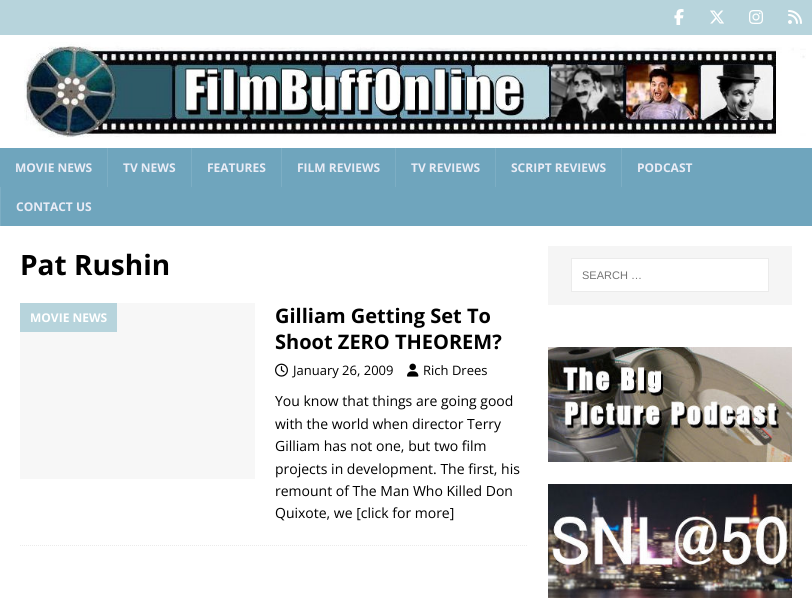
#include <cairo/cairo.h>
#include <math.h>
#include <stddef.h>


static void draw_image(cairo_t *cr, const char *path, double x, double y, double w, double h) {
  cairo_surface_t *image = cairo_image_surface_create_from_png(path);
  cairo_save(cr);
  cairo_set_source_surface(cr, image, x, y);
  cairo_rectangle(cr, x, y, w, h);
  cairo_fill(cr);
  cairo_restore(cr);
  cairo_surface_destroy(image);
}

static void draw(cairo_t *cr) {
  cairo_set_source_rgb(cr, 183 / 255.0, 212 / 255.0, 220 / 255.0);
  cairo_paint(cr);
  draw_image(cr, "images/1.png", 674, 9, 10, 16);
  draw_image(cr, "images/2.png", 710, 10, 14, 14);
  draw_image(cr, "images/3.png", 749, 10, 14, 14);
  draw_image(cr, "images/4.png", 788, 10, 14, 14);
  cairo_set_source_rgb(cr, 1, 1, 1);
  cairo_rectangle(cr, 0, 35, 812, 113);
  cairo_fill(cr);
  draw_image(cr, "images/5.png", 24, 42, 782, 96);
  cairo_set_source_rgb(cr, 111 / 255.0, 165 / 255.0, 189 / 255.0);
  cairo_rectangle(cr, 0, 148, 812, 78);
  cairo_fill(cr);
  cairo_set_source_rgb(cr, 125 / 255.0, 174 / 255.0, 196 / 255.0);
  cairo_rectangle(cr, 107, 148, 1, 39);
  cairo_fill(cr);
  cairo_rectangle(cr, 191, 148, 1, 39);
  cairo_fill(cr);
  cairo_rectangle(cr, 281, 148, 1, 39);
  cairo_fill(cr);
  cairo_rectangle(cr, 395, 148, 1, 39);
  cairo_fill(cr);
  cairo_rectangle(cr, 495, 148, 1, 39);
  cairo_fill(cr);
  cairo_rectangle(cr, 621, 148, 1, 39);
  cairo_fill(cr);
  cairo_rectangle(cr, 0, 187, 1, 39);
  cairo_fill(cr);
  cairo_set_source_rgb(cr, 1, 1, 1);
  cairo_rectangle(cr, 0, 226, 812, 376);
  cairo_fill(cr);
  cairo_new_path(cr);
  cairo_move_to(cr, 20, 545.5);
  cairo_line_to(cr, 528, 545.5);
  cairo_set_source_rgb(cr, 235 / 255.0, 235 / 255.0, 235 / 255.0);
  cairo_set_line_width(cr, 1);
  cairo_set_dash(cr, (double[]){1, 1}, 2, 0);
  cairo_stroke(cr);
  cairo_set_source_rgb(cr, 247 / 255.0, 247 / 255.0, 247 / 255.0);
  cairo_rectangle(cr, 20, 303, 235, 176);
  cairo_fill(cr);
  cairo_set_source_rgb(cr, 183 / 255.0, 212 / 255.0, 220 / 255.0);
  cairo_rectangle(cr, 20, 303, 97, 29);
  cairo_fill(cr);
  draw_image(cr, "images/6.png", 275, 363, 13, 14);
  draw_image(cr, "images/7.png", 407, 363, 12, 14);
  cairo_set_source_rgb(cr, 245 / 255.0, 245 / 255.0, 245 / 255.0);
  cairo_rectangle(cr, 548, 246, 244, 59);
  cairo_fill(cr);
  cairo_set_source_rgb(cr, 1, 1, 1);
  cairo_rectangle(cr, 571.5, 258.5, 197, 33);
  cairo_fill_preserve(cr);
  cairo_set_source_rgb(cr, 235 / 255.0, 235 / 255.0, 235 / 255.0);
  cairo_set_dash(cr, NULL, 0, 0);
  cairo_stroke(cr);
  draw_image(cr, "images/8.png", 548, 347, 244, 115);
  draw_image(cr, "images/9.png", 548, 484, 244, 114);
  cairo_select_font_face(cr, "Open Sans", CAIRO_FONT_SLANT_NORMAL, CAIRO_FONT_WEIGHT_BOLD);
  cairo_set_font_size(cr, 12);
  cairo_set_source_rgb(cr, 233 / 255.0, 236 / 255.0, 246 / 255.0);
  cairo_move_to(cr, 15, 172);
  cairo_show_text(cr, "MOVIE NEWS");
  cairo_move_to(cr, 123, 172);
  cairo_show_text(cr, "TV NEWS");
  cairo_move_to(cr, 207, 172);
  cairo_show_text(cr, "FEATURES");
  cairo_move_to(cr, 297, 172);
  cairo_show_text(cr, "FILM REVIEWS");
  cairo_move_to(cr, 411, 172);
  cairo_show_text(cr, "TV REVIEWS");
  cairo_move_to(cr, 511, 172);
  cairo_show_text(cr, "SCRIPT REVIEWS");
  cairo_move_to(cr, 637, 172);
  cairo_show_text(cr, "PODCAST");
  cairo_move_to(cr, 16, 211);
  cairo_show_text(cr, "CONTACT US");
  cairo_set_font_size(cr, 28);
  cairo_set_source_rgb(cr, 0, 0, 0);
  cairo_move_to(cr, 20, 275);
  cairo_show_text(cr, "Pat Rushin");
  cairo_set_font_size(cr, 12);
  cairo_set_source_rgb(cr, 1, 1, 1);
  cairo_move_to(cr, 30, 322);
  cairo_show_text(cr, "MOVIE NEWS");
  cairo_set_font_size(cr, 20);
  cairo_set_source_rgb(cr, 0, 0, 0);
  cairo_move_to(cr, 275, 323);
  cairo_show_text(cr, "Gilliam Getting Set To");
  cairo_move_to(cr, 275, 349);
  cairo_show_text(cr, "Shoot ZERO THEOREM?");
  cairo_select_font_face(cr, "Open Sans", CAIRO_FONT_SLANT_NORMAL, CAIRO_FONT_WEIGHT_NORMAL);
  cairo_set_font_size(cr, 13);
  cairo_move_to(cr, 293, 375);
  cairo_show_text(cr, "January 26, 2009");
  cairo_move_to(cr, 423, 375);
  cairo_show_text(cr, "Rich Drees");
  cairo_set_font_size(cr, 14);
  cairo_move_to(cr, 275, 406);
  cairo_show_text(cr, "You know that things are going good");
  cairo_move_to(cr, 275, 429);
  cairo_show_text(cr, "with the world when director Terry");
  cairo_move_to(cr, 275, 451);
  cairo_show_text(cr, "Gilliam has not one, but two film");
  cairo_move_to(cr, 275, 474);
  cairo_show_text(cr, "projects in development. The first, his");
  cairo_move_to(cr, 275, 496);
  cairo_show_text(cr, "remount of The Man Who Killed Don");
  cairo_move_to(cr, 275, 518);
  cairo_show_text(cr, "Quixote, we [click for more]");
  cairo_select_font_face(cr, "Liberation Sans", CAIRO_FONT_SLANT_NORMAL, CAIRO_FONT_WEIGHT_NORMAL);
  cairo_set_font_size(cr, 11);
  cairo_set_source_rgb(cr, 117 / 255.0, 117 / 255.0, 117 / 255.0);
  cairo_move_to(cr, 582, 279);
  cairo_show_text(cr, "SEARCH …");
}

int main(void) {
  cairo_surface_t *surface = cairo_image_surface_create(CAIRO_FORMAT_RGB24, 812, 602);
  cairo_t *cr = cairo_create(surface);
  cairo_font_options_t *options = cairo_font_options_create();
  cairo_font_options_set_hint_metrics(options, CAIRO_HINT_METRICS_OFF);
  cairo_font_options_set_hint_style(options, CAIRO_HINT_STYLE_NONE);
  cairo_set_font_options(cr, options);
  cairo_set_miter_limit(cr, 4);
  draw(cr);
  cairo_surface_write_to_png(surface, "out.png");
  cairo_font_options_destroy(options);
  cairo_destroy(cr);
  cairo_surface_destroy(surface);
  return 0;
}
